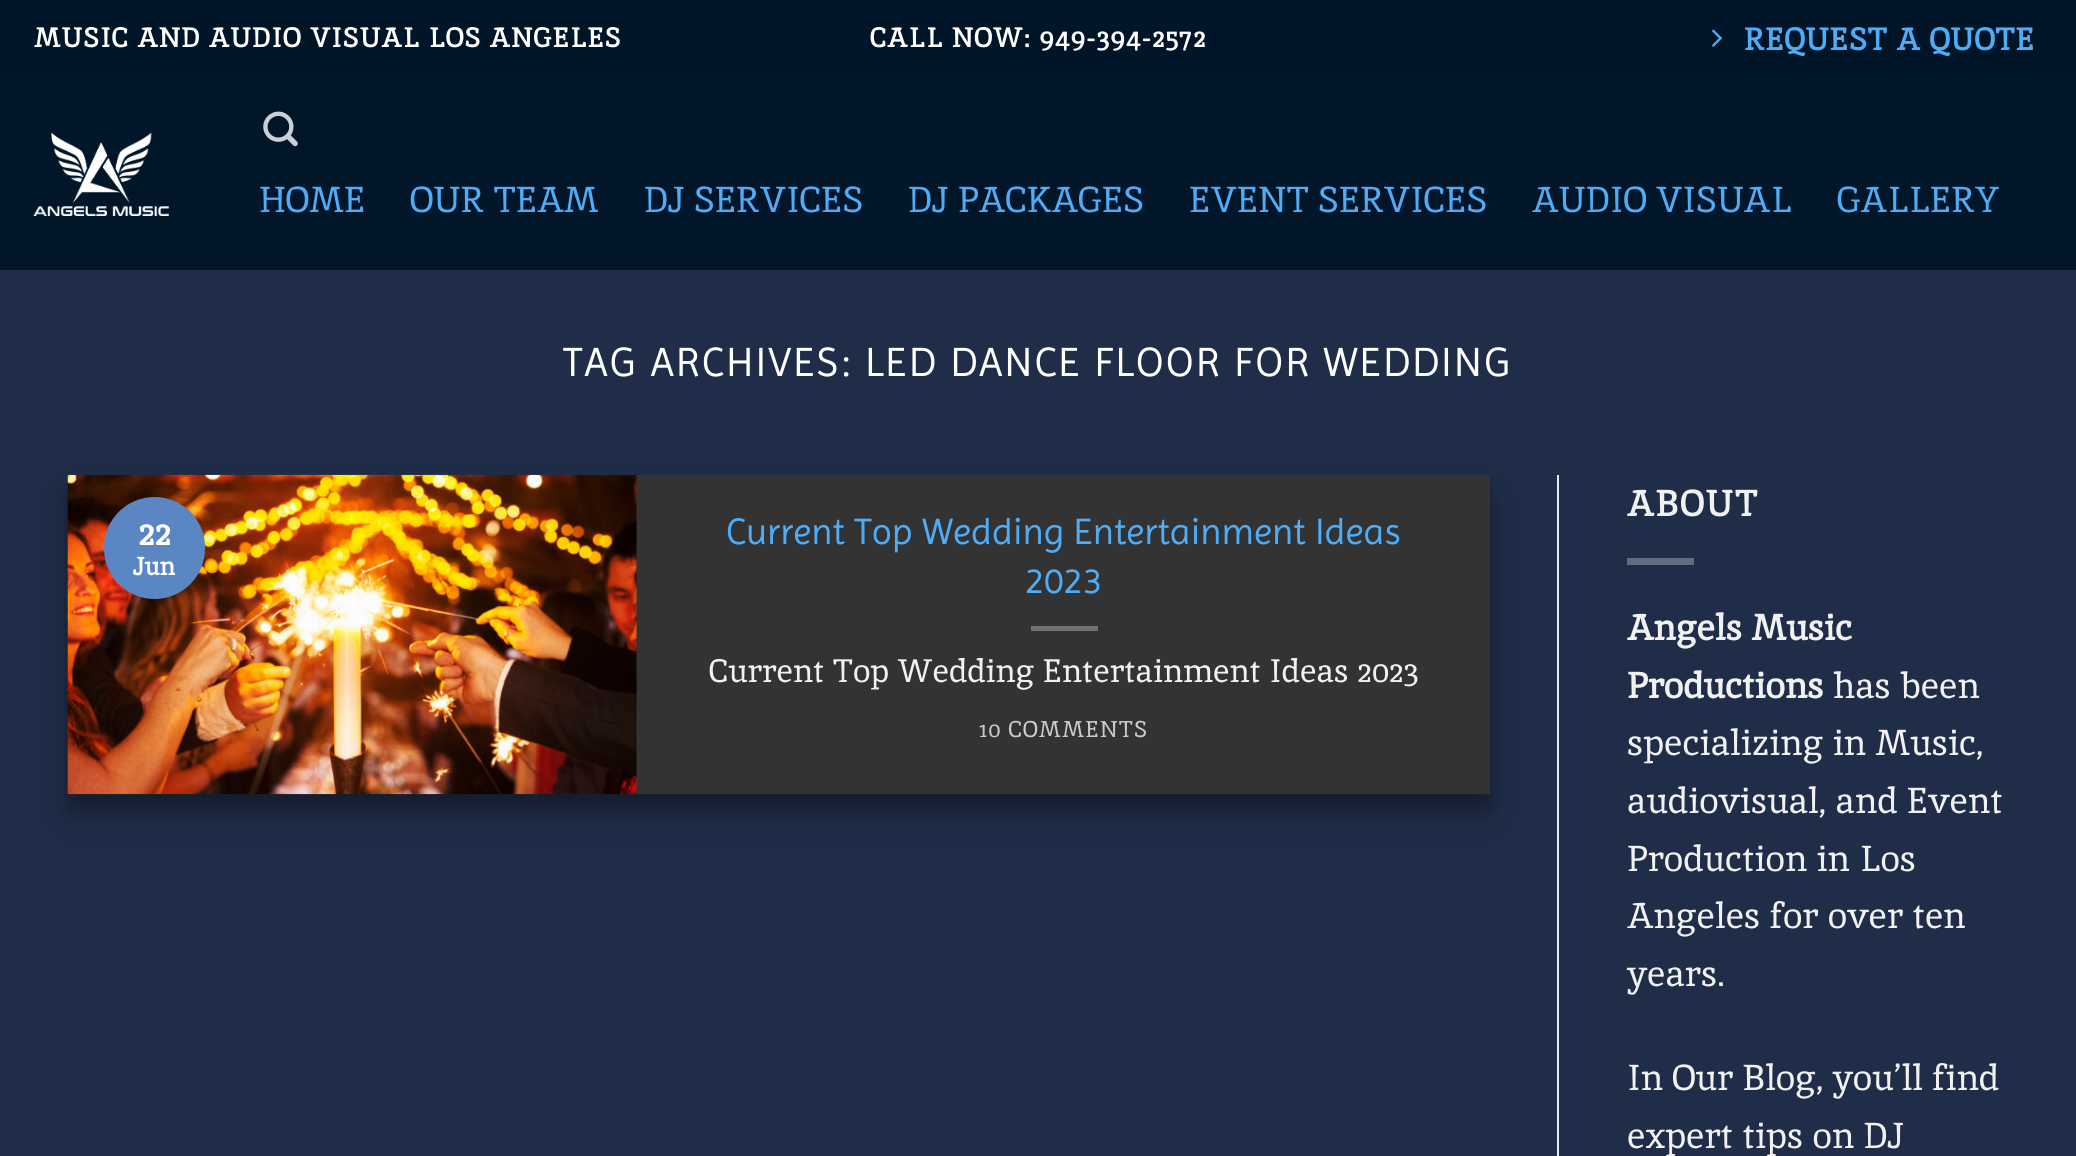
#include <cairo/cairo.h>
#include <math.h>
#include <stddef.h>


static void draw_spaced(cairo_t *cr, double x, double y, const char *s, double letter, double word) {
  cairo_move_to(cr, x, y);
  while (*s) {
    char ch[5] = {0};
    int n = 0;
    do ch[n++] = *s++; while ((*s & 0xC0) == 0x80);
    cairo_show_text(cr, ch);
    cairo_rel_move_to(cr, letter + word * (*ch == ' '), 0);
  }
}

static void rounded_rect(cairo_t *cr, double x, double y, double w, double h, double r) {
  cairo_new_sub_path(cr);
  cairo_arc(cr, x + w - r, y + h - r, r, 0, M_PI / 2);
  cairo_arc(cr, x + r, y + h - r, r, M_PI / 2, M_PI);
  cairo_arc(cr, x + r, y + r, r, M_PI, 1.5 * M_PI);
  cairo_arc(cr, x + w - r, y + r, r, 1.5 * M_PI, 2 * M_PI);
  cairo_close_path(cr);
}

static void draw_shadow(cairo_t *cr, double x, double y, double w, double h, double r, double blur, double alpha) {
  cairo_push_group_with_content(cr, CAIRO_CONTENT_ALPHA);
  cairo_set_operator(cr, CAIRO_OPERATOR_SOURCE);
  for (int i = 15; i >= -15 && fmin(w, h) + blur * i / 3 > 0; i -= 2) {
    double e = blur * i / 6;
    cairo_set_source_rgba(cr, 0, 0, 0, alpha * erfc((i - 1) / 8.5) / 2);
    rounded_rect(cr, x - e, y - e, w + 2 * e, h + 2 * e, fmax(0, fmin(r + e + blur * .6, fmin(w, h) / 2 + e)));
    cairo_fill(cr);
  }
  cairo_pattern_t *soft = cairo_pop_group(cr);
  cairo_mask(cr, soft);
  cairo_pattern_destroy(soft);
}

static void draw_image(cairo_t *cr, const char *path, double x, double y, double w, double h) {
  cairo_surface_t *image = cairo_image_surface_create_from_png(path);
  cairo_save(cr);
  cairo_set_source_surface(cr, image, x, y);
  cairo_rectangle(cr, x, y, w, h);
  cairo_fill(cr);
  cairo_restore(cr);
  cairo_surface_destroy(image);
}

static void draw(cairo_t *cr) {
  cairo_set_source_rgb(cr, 31 / 255.0, 45 / 255.0, 73 / 255.0);
  cairo_paint(cr);
  cairo_set_source_rgb(cr, 0, 21 / 255.0, 40 / 255.0);
  cairo_rectangle(cr, 0, 0, 2076, 79);
  cairo_fill(cr);
  draw_image(cr, "images/1.png", 1712, 29, 10, 18);
  cairo_set_source_rgb(cr, 2 / 255.0, 22 / 255.0, 42 / 255.0);
  cairo_rectangle(cr, 0, 79, 2076, 191);
  cairo_fill(cr);
  draw_image(cr, "images/2.png", 33, 132, 136, 84);
  draw_image(cr, "images/3.png", 263, 111, 35, 36);
  cairo_set_source_rgb(cr, 0, 0, 0);
  draw_shadow(cr, 68, 488, 1422, 320, 0, 7, 0.22);
  draw_shadow(cr, 68, 497, 1422, 320, 0, 22.5, 0.19);
  cairo_set_source_rgb(cr, 51 / 255.0, 51 / 255.0, 51 / 255.0);
  cairo_rectangle(cr, 636, 475, 854, 319);
  cairo_fill(cr);
  draw_image(cr, "images/4.png", 67, 474, 570, 321);
  cairo_set_source_rgb(cr, 112 / 255.0, 112 / 255.0, 112 / 255.0);
  cairo_rectangle(cr, 1031, 626, 67, 5);
  cairo_fill(cr);
  cairo_set_source_rgb(cr, 90 / 255.0, 134 / 255.0, 195 / 255.0);
  rounded_rect(cr, 104, 497, 101, 102, 50.5);
  cairo_fill(cr);
  cairo_set_source_rgb(cr, 236 / 255.0, 236 / 255.0, 236 / 255.0);
  cairo_rectangle(cr, 1557, 475, 2, 681);
  cairo_fill(cr);
  cairo_set_source_rgb(cr, 98 / 255.0, 108 / 255.0, 128 / 255.0);
  cairo_rectangle(cr, 1627, 558, 67, 7);
  cairo_fill(cr);
  cairo_select_font_face(cr, "Inika", CAIRO_FONT_SLANT_NORMAL, CAIRO_FONT_WEIGHT_BOLD);
  cairo_set_font_size(cr, 27);
  cairo_set_source_rgb(cr, 1, 1, 1);
  draw_spaced(cr, 34, 47, "MUSIC AND AUDIO VISUAL LOS ANGELES", 1.35, 0);
  draw_spaced(cr, 870, 47, "CALL NOW: 949-394-2572", 1.35, 0);
  cairo_set_font_size(cr, 31);
  cairo_set_source_rgb(cr, 79 / 255.0, 172 / 255.0, 246 / 255.0);
  draw_spaced(cr, 1744, 50, "REQUEST A QUOTE", 0.9, 0);
  cairo_select_font_face(cr, "Inika", CAIRO_FONT_SLANT_NORMAL, CAIRO_FONT_WEIGHT_NORMAL);
  cairo_set_font_size(cr, 36);
  cairo_move_to(cr, 259, 212);
  cairo_show_text(cr, "HOME");
  cairo_move_to(cr, 410, 212);
  cairo_show_text(cr, "OUR TEAM");
  cairo_move_to(cr, 644, 212);
  cairo_show_text(cr, "DJ SERVICES");
  cairo_move_to(cr, 908, 212);
  cairo_show_text(cr, "DJ PACKAGES");
  cairo_move_to(cr, 1189, 212);
  cairo_show_text(cr, "EVENT SERVICES");
  cairo_move_to(cr, 1532, 212);
  cairo_show_text(cr, "AUDIO VISUAL");
  cairo_move_to(cr, 1837, 212);
  cairo_show_text(cr, "GALLERY");
  cairo_select_font_face(cr, "Imprima", CAIRO_FONT_SLANT_NORMAL, CAIRO_FONT_WEIGHT_NORMAL);
  cairo_set_font_size(cr, 41.4);
  cairo_set_source_rgb(cr, 1, 1, 1);
  draw_spaced(cr, 563, 376, "TAG ARCHIVES: LED DANCE FLOOR FOR WEDDING", 2.05, 0);
  cairo_set_font_size(cr, 37.25);
  cairo_set_source_rgb(cr, 79 / 255.0, 172 / 255.0, 246 / 255.0);
  cairo_move_to(cr, 726, 544);
  cairo_show_text(cr, "Current Top Wedding Entertainment Ideas");
  cairo_move_to(cr, 1025, 593);
  cairo_show_text(cr, "2023");
  cairo_select_font_face(cr, "Inika", CAIRO_FONT_SLANT_NORMAL, CAIRO_FONT_WEIGHT_NORMAL);
  cairo_set_font_size(cr, 32.4);
  cairo_set_source_rgb(cr, 241 / 255.0, 241 / 255.0, 241 / 255.0);
  cairo_move_to(cr, 709, 682);
  cairo_show_text(cr, "Current Top Wedding Entertainment Ideas 2023");
  cairo_set_font_size(cr, 22.75);
  cairo_set_source_rgb(cr, 203 / 255.0, 203 / 255.0, 203 / 255.0);
  draw_spaced(cr, 979, 737, "10 COMMENTS", 1.1, 0);
  cairo_select_font_face(cr, "Inika", CAIRO_FONT_SLANT_NORMAL, CAIRO_FONT_WEIGHT_BOLD);
  cairo_set_font_size(cr, 36);
  cairo_set_source_rgb(cr, 1, 1, 1);
  cairo_move_to(cr, 138, 545);
  cairo_show_text(cr, "22");
  cairo_set_font_size(cr, 25);
  cairo_move_to(cr, 133, 575);
  cairo_show_text(cr, "Jun");
  cairo_set_font_size(cr, 36);
  cairo_set_source_rgb(cr, 241 / 255.0, 241 / 255.0, 241 / 255.0);
  draw_spaced(cr, 1627, 516, "ABOUT", 2, 0);
  cairo_move_to(cr, 1627, 640);
  cairo_show_text(cr, "Angels Music");
  cairo_move_to(cr, 1627, 698);
  cairo_show_text(cr, "Productions");
  cairo_select_font_face(cr, "Inika", CAIRO_FONT_SLANT_NORMAL, CAIRO_FONT_WEIGHT_NORMAL);
  cairo_move_to(cr, 1833, 698);
  cairo_show_text(cr, "has been");
  cairo_move_to(cr, 1627, 755);
  cairo_show_text(cr, "specializing in Music,");
  cairo_move_to(cr, 1627, 813);
  cairo_show_text(cr, "audiovisual, and Event");
  cairo_move_to(cr, 1627, 871);
  cairo_show_text(cr, "Production in Los");
  cairo_move_to(cr, 1627, 928);
  cairo_show_text(cr, "Angeles for over ten");
  cairo_move_to(cr, 1627, 986);
  cairo_show_text(cr, "years.");
  cairo_move_to(cr, 1627, 1090);
  cairo_show_text(cr, "In Our Blog, you’ll find");
  cairo_move_to(cr, 1627, 1148);
  cairo_show_text(cr, "expert tips on DJ");
}

int main(void) {
  cairo_surface_t *surface = cairo_image_surface_create(CAIRO_FORMAT_RGB24, 2076, 1156);
  cairo_t *cr = cairo_create(surface);
  cairo_font_options_t *options = cairo_font_options_create();
  cairo_font_options_set_hint_metrics(options, CAIRO_HINT_METRICS_OFF);
  cairo_font_options_set_hint_style(options, CAIRO_HINT_STYLE_NONE);
  cairo_set_font_options(cr, options);
  cairo_set_miter_limit(cr, 4);
  draw(cr);
  cairo_surface_write_to_png(surface, "out.png");
  cairo_font_options_destroy(options);
  cairo_destroy(cr);
  cairo_surface_destroy(surface);
  return 0;
}
